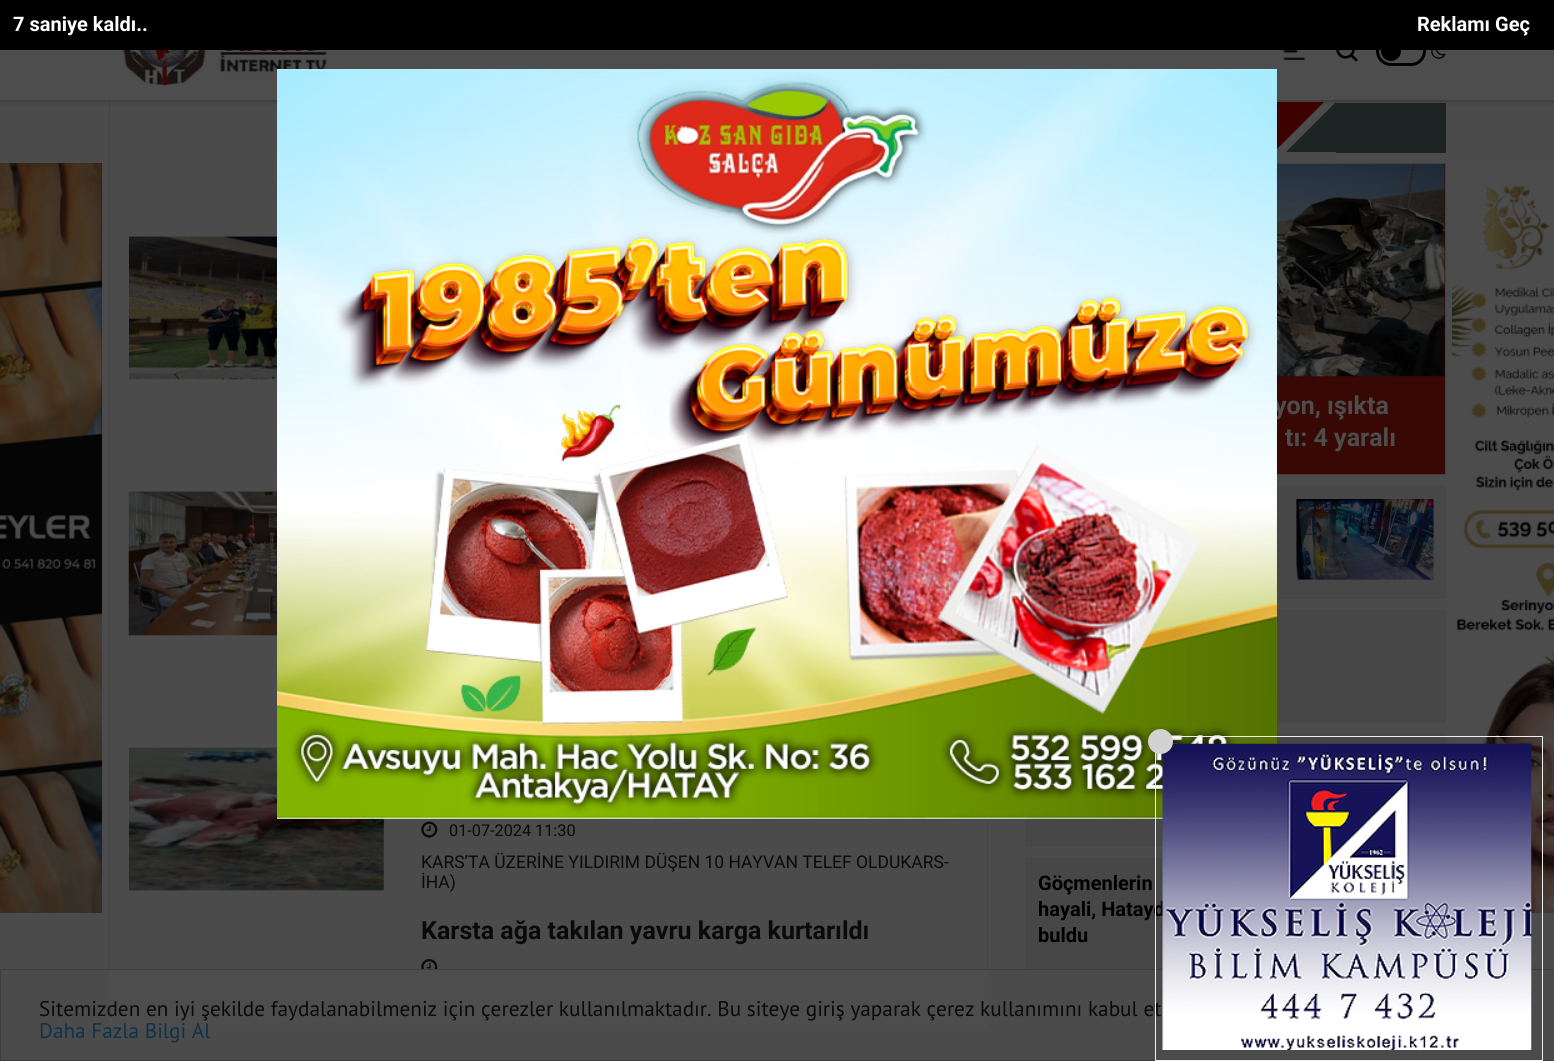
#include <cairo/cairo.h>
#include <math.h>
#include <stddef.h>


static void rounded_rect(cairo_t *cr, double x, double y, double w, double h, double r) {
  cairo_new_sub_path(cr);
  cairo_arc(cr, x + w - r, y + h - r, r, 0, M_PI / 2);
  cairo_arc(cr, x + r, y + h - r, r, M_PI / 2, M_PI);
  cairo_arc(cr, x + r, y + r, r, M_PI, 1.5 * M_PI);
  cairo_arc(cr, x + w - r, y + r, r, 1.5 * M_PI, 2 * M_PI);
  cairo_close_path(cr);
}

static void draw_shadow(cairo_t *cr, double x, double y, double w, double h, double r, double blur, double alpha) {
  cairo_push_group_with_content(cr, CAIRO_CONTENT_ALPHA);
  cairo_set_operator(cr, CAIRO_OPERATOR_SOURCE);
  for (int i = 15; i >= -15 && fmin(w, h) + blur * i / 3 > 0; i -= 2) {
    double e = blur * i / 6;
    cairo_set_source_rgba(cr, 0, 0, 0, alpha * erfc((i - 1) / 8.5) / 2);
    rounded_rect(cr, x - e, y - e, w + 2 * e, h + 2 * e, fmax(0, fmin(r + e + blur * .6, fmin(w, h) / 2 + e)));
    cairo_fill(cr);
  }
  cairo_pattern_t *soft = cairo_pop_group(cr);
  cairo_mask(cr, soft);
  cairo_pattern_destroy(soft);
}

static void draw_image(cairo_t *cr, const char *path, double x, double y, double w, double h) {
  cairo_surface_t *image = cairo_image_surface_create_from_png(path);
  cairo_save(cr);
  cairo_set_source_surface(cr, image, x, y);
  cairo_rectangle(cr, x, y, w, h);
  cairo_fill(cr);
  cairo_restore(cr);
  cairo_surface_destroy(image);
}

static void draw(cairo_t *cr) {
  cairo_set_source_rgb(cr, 75 / 255.0, 75 / 255.0, 75 / 255.0);
  cairo_paint(cr);
  cairo_rectangle(cr, 109.5, -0.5, 878, 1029);
  cairo_set_source_rgb(cr, 69 / 255.0, 69 / 255.0, 69 / 255.0);
  cairo_set_line_width(cr, 1);
  cairo_stroke(cr);
  cairo_set_source_rgb(cr, 30 / 255.0, 35 / 255.0, 35 / 255.0);
  cairo_rectangle(cr, 1336, 103, 110, 50);
  cairo_fill(cr);
  cairo_new_path(cr);
  cairo_move_to(cr, 1336, 102);
  cairo_line_to(cr, 1336, 152);
  cairo_line_to(cr, 1286, 152);
  cairo_close_path(cr);
  cairo_fill(cr);
  cairo_set_source_rgb(cr, 61 / 255.0, 1 / 255.0, 0);
  cairo_new_path(cr);
  cairo_move_to(cr, 1274, 152);
  cairo_line_to(cr, 1274, 102);
  cairo_line_to(cr, 1324, 102);
  cairo_close_path(cr);
  cairo_fill(cr);
  cairo_set_source_rgb(cr, 0, 0, 0);
  draw_shadow(cr, 0, 1, 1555, 100, 0, 2.5, 0.3);
  cairo_set_source_rgb(cr, 77 / 255.0, 77 / 255.0, 77 / 255.0);
  cairo_rectangle(cr, 0, 50, 1554, 50);
  cairo_fill(cr);
  draw_image(cr, "images/1.png", 123, 50, 204, 36);
  draw_image(cr, "images/2.png", 1283, 50, 23, 10);
  draw_image(cr, "images/3.png", 1336, 50, 22, 12);
  rounded_rect(cr, 1377.5, 37.5, 47, 27, 13.5);
  cairo_set_source_rgb(cr, 0, 0, 0);
  cairo_set_line_width(cr, 3);
  cairo_stroke(cr);
  cairo_arc(cr, 1391, 51, 10, 0, 2 * M_PI);
  cairo_fill(cr);
  draw_image(cr, "images/4.png", 1431, 50, 15, 9);
  cairo_rectangle(cr, 0, 0, 1554, 50);
  cairo_fill(cr);
  draw_image(cr, "images/6.png", 0, 163, 102, 750);
  draw_image(cr, "images/7.png", 129, 236, 148, 144);
  draw_image(cr, "images/8.png", 128, 491, 149, 145);
  draw_image(cr, "images/9.png", 129, 747, 255, 144);
  draw_image(cr, "images/10.png", 421, 821, 17, 17);
  draw_image(cr, "images/11.png", 421, 959, 17, 10);
  cairo_set_source_rgb(cr, 55 / 255.0, 8 / 255.0, 4 / 255.0);
  cairo_rectangle(cr, 1277, 164, 168, 310);
  cairo_fill(cr);
  cairo_rectangle(cr, 1025.5, 163.5, 420, 311);
  cairo_set_source_rgb(cr, 65 / 255.0, 65 / 255.0, 65 / 255.0);
  cairo_set_line_width(cr, 1);
  cairo_stroke(cr);
  draw_image(cr, "images/12.png", 1277, 164, 168, 213);
  cairo_set_source_rgb(cr, 71 / 255.0, 71 / 255.0, 71 / 255.0);
  cairo_rectangle(cr, 1277, 486, 169, 113);
  cairo_fill(cr);
  draw_image(cr, "images/13.png", 1296, 499, 138, 81);
  cairo_rectangle(cr, 1277, 610, 169, 113);
  cairo_fill(cr);
  cairo_rectangle(cr, 1025, 734, 421, 112);
  cairo_fill(cr);
  cairo_rectangle(cr, 1025, 858, 139, 111);
  cairo_fill(cr);
  draw_image(cr, "images/14.png", 1452, 163, 102, 750);
  cairo_set_source_rgb(cr, 77 / 255.0, 77 / 255.0, 77 / 255.0);
  cairo_rectangle(cr, 109, 970, 879, 59);
  cairo_fill(cr);
  cairo_rectangle(cr, 0.5, 969.5, 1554, 91);
  cairo_set_source_rgb(cr, 61 / 255.0, 61 / 255.0, 61 / 255.0);
  cairo_stroke(cr);
  cairo_select_font_face(cr, "Roboto", CAIRO_FONT_SLANT_NORMAL, CAIRO_FONT_WEIGHT_BOLD);
  cairo_set_font_size(cr, 20);
  cairo_set_source_rgb(cr, 1, 1, 1);
  cairo_move_to(cr, 13, 31);
  cairo_show_text(cr, "7 saniye kaldı..");
  cairo_move_to(cr, 1417, 31);
  cairo_show_text(cr, "Reklamı Geç");
  cairo_select_font_face(cr, "Roboto", CAIRO_FONT_SLANT_NORMAL, CAIRO_FONT_WEIGHT_NORMAL);
  cairo_set_font_size(cr, 16.25);
  cairo_set_source_rgb(cr, 10 / 255.0, 10 / 255.0, 10 / 255.0);
  cairo_move_to(cr, 449, 836);
  cairo_show_text(cr, "01-07-2024 11:30");
  cairo_set_font_size(cr, 17.5);
  cairo_move_to(cr, 421, 868);
  cairo_show_text(cr, "KARS’TA ÜZERİNE YILDIRIM DÜŞEN 10 HAYVAN TELEF OLDUKARS-");
  cairo_move_to(cr, 421, 888);
  cairo_show_text(cr, "İHA)");
  cairo_select_font_face(cr, "Roboto", CAIRO_FONT_SLANT_NORMAL, CAIRO_FONT_WEIGHT_BOLD);
  cairo_set_font_size(cr, 25);
  cairo_move_to(cr, 421, 939);
  cairo_show_text(cr, "Karsta ağa takılan yavru karga kurtarıldı");
  cairo_set_source_rgb(cr, 77 / 255.0, 77 / 255.0, 77 / 255.0);
  cairo_move_to(cr, 1274, 414);
  cairo_show_text(cr, "yon, ışıkta");
  draw_image(cr, "images/5.png", 277, 69, 1000, 750);
  cairo_move_to(cr, 1285, 446);
  cairo_show_text(cr, "tı: 4 yaralı");
  cairo_set_font_size(cr, 20);
  cairo_set_source_rgb(cr, 0, 0, 0);
  cairo_move_to(cr, 1038, 890);
  cairo_show_text(cr, "Göçmenlerin");
  cairo_move_to(cr, 1038, 916);
  cairo_show_text(cr, "hayali, Hatayd");
  cairo_move_to(cr, 1038, 942);
  cairo_show_text(cr, "buldu");
  cairo_select_font_face(cr, "PT Sans", CAIRO_FONT_SLANT_NORMAL, CAIRO_FONT_WEIGHT_NORMAL);
  cairo_set_font_size(cr, 21.25);
  cairo_set_source_rgb(cr, 10 / 255.0, 10 / 255.0, 10 / 255.0);
  cairo_move_to(cr, 39, 1016);
  cairo_show_text(cr, "Sitemizden en iyi şekilde faydalanabilmeniz için çerezler kullanılmaktadır. Bu siteye giriş yaparak çerez kullanımını kabul et");
  cairo_set_source_rgb(cr, 15 / 255.0, 50 / 255.0, 72 / 255.0);
  cairo_move_to(cr, 39, 1038);
  cairo_show_text(cr, "Daha Fazla Bilgi Al");
  cairo_rectangle(cr, 1155.5, 736.5, 387, 324);
  cairo_set_source_rgb(cr, 240 / 255.0, 240 / 255.0, 240 / 255.0);
  cairo_stroke(cr);
  draw_image(cr, "images/15.png", 1162, 743, 370, 307);
  cairo_set_source_rgb(cr, 210 / 255.0, 210 / 255.0, 210 / 255.0);
  cairo_arc(cr, 1160.5, 741.5, 12.5, 0, 2 * M_PI);
  cairo_fill(cr);
}

int main(void) {
  cairo_surface_t *surface = cairo_image_surface_create(CAIRO_FORMAT_RGB24, 1554, 1061);
  cairo_t *cr = cairo_create(surface);
  cairo_font_options_t *options = cairo_font_options_create();
  cairo_font_options_set_hint_metrics(options, CAIRO_HINT_METRICS_OFF);
  cairo_font_options_set_hint_style(options, CAIRO_HINT_STYLE_NONE);
  cairo_set_font_options(cr, options);
  cairo_set_miter_limit(cr, 4);
  draw(cr);
  cairo_surface_write_to_png(surface, "out.png");
  cairo_font_options_destroy(options);
  cairo_destroy(cr);
  cairo_surface_destroy(surface);
  return 0;
}
